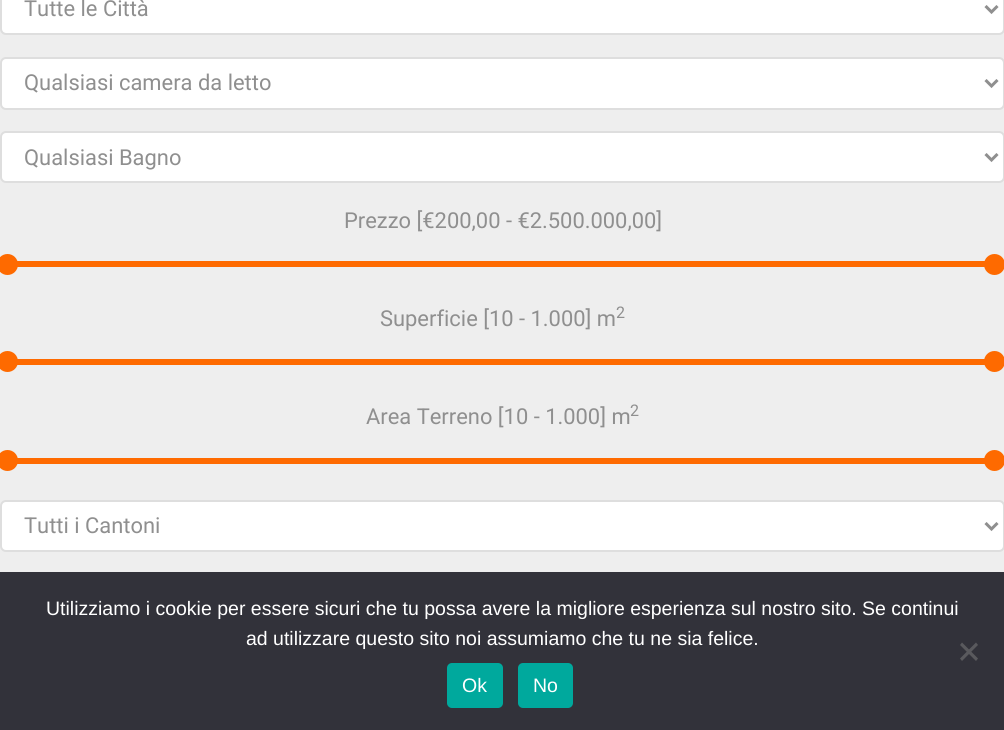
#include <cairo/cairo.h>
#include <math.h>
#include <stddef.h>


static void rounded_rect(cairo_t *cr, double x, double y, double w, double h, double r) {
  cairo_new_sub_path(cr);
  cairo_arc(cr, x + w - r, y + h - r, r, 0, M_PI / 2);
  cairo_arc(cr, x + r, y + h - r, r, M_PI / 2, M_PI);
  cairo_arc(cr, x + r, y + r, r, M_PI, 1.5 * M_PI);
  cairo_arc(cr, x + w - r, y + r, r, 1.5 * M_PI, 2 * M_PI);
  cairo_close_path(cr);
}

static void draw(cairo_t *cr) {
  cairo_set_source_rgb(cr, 238 / 255.0, 238 / 255.0, 238 / 255.0);
  cairo_paint(cr);
  cairo_set_source_rgb(cr, 1, 1, 1);
  rounded_rect(cr, 2, -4, 1002, 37, 4);
  cairo_fill(cr);
  rounded_rect(cr, 1, -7, 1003, 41, 5);
  cairo_set_source_rgb(cr, 222 / 255.0, 222 / 255.0, 222 / 255.0);
  cairo_stroke(cr);
  cairo_new_path(cr);
  cairo_move_to(cr, 985.5, 6);
  cairo_line_to(cr, 991.5, 12);
  cairo_line_to(cr, 997.5, 6);
  cairo_set_source_rgb(cr, 143 / 255.0, 143 / 255.0, 143 / 255.0);
  cairo_set_line_width(cr, 3);
  cairo_stroke(cr);
  cairo_set_source_rgb(cr, 1, 1, 1);
  rounded_rect(cr, 1, 58, 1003, 51, 5);
  cairo_fill_preserve(cr);
  cairo_set_source_rgb(cr, 222 / 255.0, 222 / 255.0, 222 / 255.0);
  cairo_set_line_width(cr, 2);
  cairo_stroke(cr);
  cairo_new_path(cr);
  cairo_move_to(cr, 985.5, 80);
  cairo_line_to(cr, 991.5, 86);
  cairo_line_to(cr, 997.5, 80);
  cairo_set_source_rgb(cr, 143 / 255.0, 143 / 255.0, 143 / 255.0);
  cairo_set_line_width(cr, 3);
  cairo_stroke(cr);
  cairo_set_source_rgb(cr, 1, 1, 1);
  rounded_rect(cr, 1, 132, 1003, 50, 5);
  cairo_fill_preserve(cr);
  cairo_set_source_rgb(cr, 222 / 255.0, 222 / 255.0, 222 / 255.0);
  cairo_set_line_width(cr, 2);
  cairo_stroke(cr);
  cairo_new_path(cr);
  cairo_move_to(cr, 985.5, 154);
  cairo_line_to(cr, 991.5, 160);
  cairo_line_to(cr, 997.5, 154);
  cairo_set_source_rgb(cr, 143 / 255.0, 143 / 255.0, 143 / 255.0);
  cairo_set_line_width(cr, 3);
  cairo_stroke(cr);
  cairo_set_source_rgb(cr, 254 / 255.0, 106 / 255.0, 0);
  cairo_rectangle(cr, 12, 261, 973, 6);
  cairo_fill(cr);
  cairo_arc(cr, 7.5, 264.5, 10.5, 0, 2 * M_PI);
  cairo_fill(cr);
  cairo_arc(cr, 994.5, 264.5, 10.5, 0, 2 * M_PI);
  cairo_fill(cr);
  cairo_rectangle(cr, 12, 359, 973, 6);
  cairo_fill(cr);
  cairo_arc(cr, 7.5, 361.5, 10.5, 0, 2 * M_PI);
  cairo_fill(cr);
  cairo_arc(cr, 994.5, 361.5, 10.5, 0, 2 * M_PI);
  cairo_fill(cr);
  cairo_rectangle(cr, 12, 458, 973, 6);
  cairo_fill(cr);
  cairo_arc(cr, 7.5, 460.5, 10.5, 0, 2 * M_PI);
  cairo_fill(cr);
  cairo_arc(cr, 994.5, 460.5, 10.5, 0, 2 * M_PI);
  cairo_fill(cr);
  cairo_set_source_rgb(cr, 1, 1, 1);
  rounded_rect(cr, 1, 501, 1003, 50, 5);
  cairo_fill_preserve(cr);
  cairo_set_source_rgb(cr, 222 / 255.0, 222 / 255.0, 222 / 255.0);
  cairo_set_line_width(cr, 2);
  cairo_stroke(cr);
  cairo_new_path(cr);
  cairo_move_to(cr, 985.5, 523);
  cairo_line_to(cr, 991.5, 529);
  cairo_line_to(cr, 997.5, 523);
  cairo_set_source_rgb(cr, 143 / 255.0, 143 / 255.0, 143 / 255.0);
  cairo_set_line_width(cr, 3);
  cairo_stroke(cr);
  cairo_set_source_rgb(cr, 50 / 255.0, 50 / 255.0, 58 / 255.0);
  cairo_rectangle(cr, 0, 572, 1004, 158);
  cairo_fill(cr);
  cairo_set_source_rgb(cr, 89 / 255.0, 89 / 255.0, 93 / 255.0);
  cairo_new_path(cr);
  cairo_move_to(cr, 976, 642.5);
  cairo_line_to(cr, 978, 645);
  cairo_line_to(cr, 962, 661);
  cairo_line_to(cr, 960, 658.5);
  cairo_close_path(cr);
  cairo_fill(cr);
  cairo_new_path(cr);
  cairo_move_to(cr, 960, 645);
  cairo_line_to(cr, 962, 642.5);
  cairo_line_to(cr, 978, 658.5);
  cairo_line_to(cr, 976, 661);
  cairo_close_path(cr);
  cairo_fill(cr);
  cairo_set_source_rgb(cr, 0, 169 / 255.0, 157 / 255.0);
  rounded_rect(cr, 447, 663, 56, 45, 5);
  cairo_fill(cr);
  rounded_rect(cr, 518, 663, 55, 45, 5);
  cairo_fill(cr);
  cairo_select_font_face(cr, "Roboto", CAIRO_FONT_SLANT_NORMAL, CAIRO_FONT_WEIGHT_NORMAL);
  cairo_set_font_size(cr, 21.9);
  cairo_set_source_rgb(cr, 143 / 255.0, 143 / 255.0, 143 / 255.0);
  cairo_move_to(cr, 24, 16);
  cairo_show_text(cr, "Tutte le Città");
  cairo_move_to(cr, 24, 90);
  cairo_show_text(cr, "Qualsiasi camera da letto");
  cairo_move_to(cr, 24, 165);
  cairo_show_text(cr, "Qualsiasi Bagno");
  cairo_move_to(cr, 344, 228);
  cairo_show_text(cr, "Prezzo [€200,00 - €2.500.000,00]");
  cairo_move_to(cr, 380, 326);
  cairo_show_text(cr, "Superficie [10 - 1.000] m");
  cairo_set_font_size(cr, 16);
  cairo_move_to(cr, 616, 318);
  cairo_show_text(cr, "2");
  cairo_set_font_size(cr, 21.9);
  cairo_move_to(cr, 366, 424);
  cairo_show_text(cr, "Area Terreno [10 - 1.000] m");
  cairo_set_font_size(cr, 16);
  cairo_move_to(cr, 630, 416);
  cairo_show_text(cr, "2");
  cairo_set_font_size(cr, 21.9);
  cairo_move_to(cr, 24, 533);
  cairo_show_text(cr, "Tutti i Cantoni");
  cairo_select_font_face(cr, "Liberation Sans", CAIRO_FONT_SLANT_NORMAL, CAIRO_FONT_WEIGHT_NORMAL);
  cairo_set_font_size(cr, 19.5);
  cairo_set_source_rgb(cr, 1, 1, 1);
  cairo_move_to(cr, 46, 615);
  cairo_show_text(cr, "Utilizziamo i cookie per essere sicuri che tu possa avere la migliore esperienza sul nostro sito. Se continui");
  cairo_move_to(cr, 246, 645);
  cairo_show_text(cr, "ad utilizzare questo sito noi assumiamo che tu ne sia felice.");
  cairo_move_to(cr, 462, 692);
  cairo_show_text(cr, "Ok");
  cairo_move_to(cr, 533, 692);
  cairo_show_text(cr, "No");
}

int main(void) {
  cairo_surface_t *surface = cairo_image_surface_create(CAIRO_FORMAT_RGB24, 1004, 730);
  cairo_t *cr = cairo_create(surface);
  cairo_font_options_t *options = cairo_font_options_create();
  cairo_font_options_set_hint_metrics(options, CAIRO_HINT_METRICS_OFF);
  cairo_font_options_set_hint_style(options, CAIRO_HINT_STYLE_NONE);
  cairo_set_font_options(cr, options);
  cairo_set_miter_limit(cr, 4);
  draw(cr);
  cairo_surface_write_to_png(surface, "out.png");
  cairo_font_options_destroy(options);
  cairo_destroy(cr);
  cairo_surface_destroy(surface);
  return 0;
}
